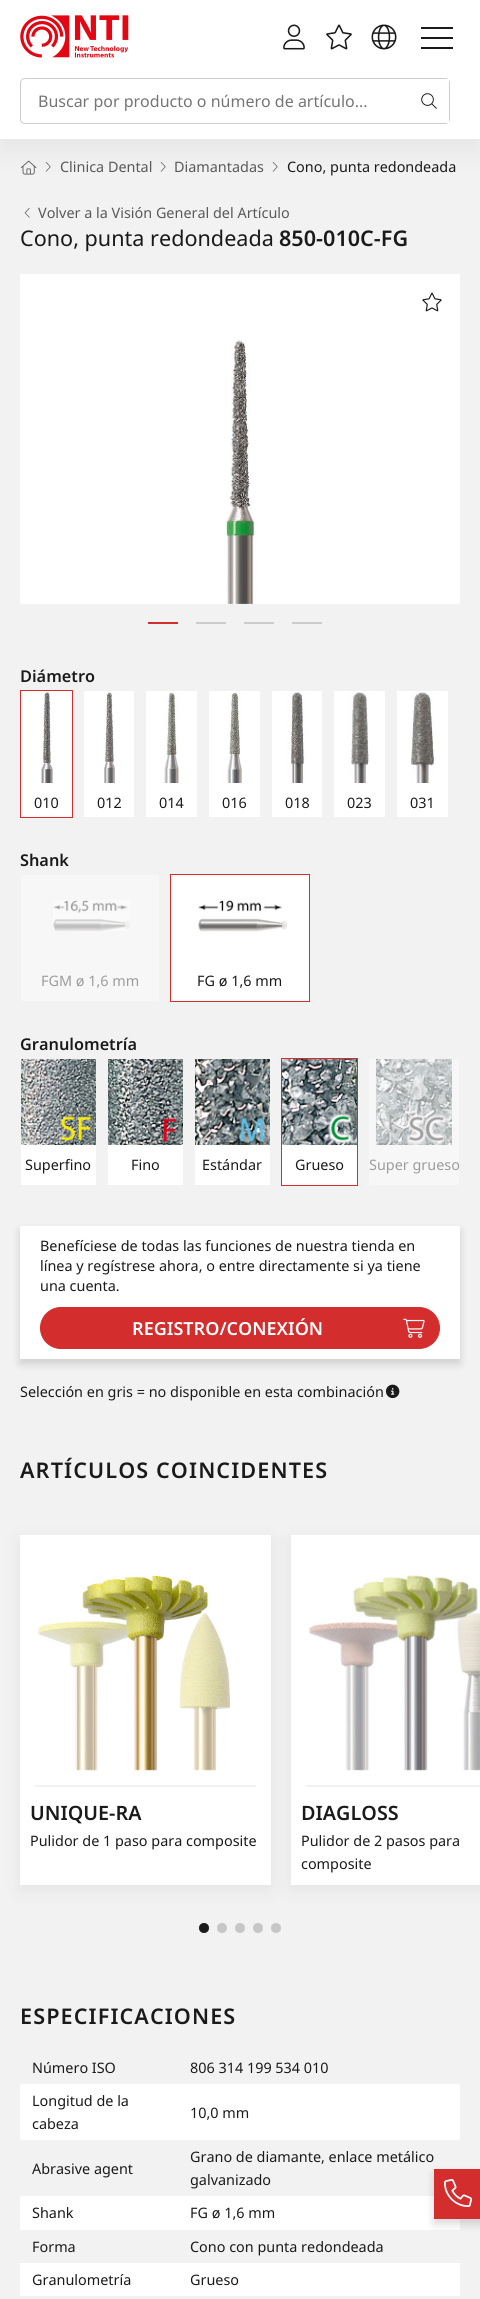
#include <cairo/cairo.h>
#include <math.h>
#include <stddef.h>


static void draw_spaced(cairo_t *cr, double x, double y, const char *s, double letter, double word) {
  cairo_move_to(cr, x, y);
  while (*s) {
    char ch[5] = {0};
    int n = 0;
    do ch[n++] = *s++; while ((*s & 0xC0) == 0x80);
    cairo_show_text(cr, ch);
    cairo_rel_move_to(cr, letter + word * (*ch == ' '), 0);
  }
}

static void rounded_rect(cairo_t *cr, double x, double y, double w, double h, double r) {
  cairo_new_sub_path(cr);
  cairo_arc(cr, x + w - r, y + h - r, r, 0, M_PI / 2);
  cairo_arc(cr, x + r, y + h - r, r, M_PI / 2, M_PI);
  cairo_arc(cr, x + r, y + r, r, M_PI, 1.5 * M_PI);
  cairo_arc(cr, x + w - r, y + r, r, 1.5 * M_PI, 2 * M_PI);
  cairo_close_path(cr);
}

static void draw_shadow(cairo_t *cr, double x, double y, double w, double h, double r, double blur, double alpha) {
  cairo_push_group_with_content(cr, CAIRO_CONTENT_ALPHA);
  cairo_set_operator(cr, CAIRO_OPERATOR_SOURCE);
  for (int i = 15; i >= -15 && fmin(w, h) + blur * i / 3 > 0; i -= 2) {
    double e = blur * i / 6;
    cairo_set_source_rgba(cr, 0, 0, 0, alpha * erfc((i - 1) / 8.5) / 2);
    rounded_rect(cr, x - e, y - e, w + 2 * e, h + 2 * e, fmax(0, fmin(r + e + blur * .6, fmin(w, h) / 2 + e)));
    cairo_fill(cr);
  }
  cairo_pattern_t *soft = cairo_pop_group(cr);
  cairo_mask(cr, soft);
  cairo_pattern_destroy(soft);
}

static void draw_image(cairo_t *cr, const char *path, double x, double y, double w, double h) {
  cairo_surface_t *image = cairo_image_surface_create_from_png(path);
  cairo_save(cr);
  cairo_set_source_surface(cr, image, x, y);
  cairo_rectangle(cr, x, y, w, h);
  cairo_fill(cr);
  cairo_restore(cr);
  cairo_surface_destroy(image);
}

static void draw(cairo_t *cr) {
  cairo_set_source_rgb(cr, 242 / 255.0, 242 / 255.0, 242 / 255.0);
  cairo_paint(cr);
  cairo_set_source_rgb(cr, 0, 0, 0);
  draw_shadow(cr, 0, 10, 480, 139, 0, 15, 0.06);
  cairo_set_source_rgb(cr, 1, 1, 1);
  cairo_rectangle(cr, 0, 0, 480, 139);
  cairo_fill(cr);
  draw_image(cr, "images/1.png", 20, 15, 109, 43);
  draw_image(cr, "images/2.png", 283, 24, 22, 26);
  draw_image(cr, "images/3.png", 326, 24, 26, 26);
  draw_image(cr, "images/4.png", 371, 24, 26, 26);
  cairo_set_source_rgb(cr, 26 / 255.0, 26 / 255.0, 26 / 255.0);
  cairo_rectangle(cr, 421, 27, 32, 2);
  cairo_fill(cr);
  cairo_rectangle(cr, 421, 37, 32, 2);
  cairo_fill(cr);
  cairo_rectangle(cr, 421, 47, 32, 2);
  cairo_fill(cr);
  rounded_rect(cr, 20.5, 78.5, 429, 45, 4.5);
  cairo_set_source_rgb(cr, 204 / 255.0, 204 / 255.0, 204 / 255.0);
  cairo_set_line_width(cr, 1);
  cairo_stroke(cr);
  cairo_set_source_rgb(cr, 1, 1, 1);
  cairo_new_path(cr);
  cairo_move_to(cr, 26, 80);
  cairo_line_to(cr, 417, 80);
  cairo_line_to(cr, 417, 122);
  cairo_line_to(cr, 26, 122);
  cairo_curve_to(cr, 24, 122, 22, 120, 22, 118);
  cairo_line_to(cr, 22, 84);
  cairo_curve_to(cr, 22, 82, 24, 80, 26, 80);
  cairo_close_path(cr);
  cairo_fill_preserve(cr);
  cairo_set_line_width(cr, 2);
  cairo_stroke(cr);
  cairo_rectangle(cr, 445, 79, 4, 44);
  cairo_fill(cr);
  draw_image(cr, "images/5.png", 421, 93, 16, 16);
  draw_image(cr, "images/6.png", 20, 160, 17, 15);
  draw_image(cr, "images/7.png", 45, 162, 6, 10);
  draw_image(cr, "images/7.png", 160, 162, 6, 10);
  draw_image(cr, "images/7.png", 272, 162, 6, 10);
  draw_image(cr, "images/8.png", 24, 207, 6, 11);
  cairo_rectangle(cr, 20, 274, 440, 330);
  cairo_fill(cr);
  draw_image(cr, "images/9.png", 226, 339, 31, 265);
  cairo_set_source_rgb(cr, 211 / 255.0, 45 / 255.0, 45 / 255.0);
  cairo_rectangle(cr, 148, 622, 30, 2);
  cairo_fill(cr);
  cairo_set_source_rgb(cr, 204 / 255.0, 204 / 255.0, 204 / 255.0);
  cairo_rectangle(cr, 196, 622, 30, 2);
  cairo_fill(cr);
  cairo_rectangle(cr, 244, 622, 30, 2);
  cairo_fill(cr);
  cairo_rectangle(cr, 292, 622, 30, 2);
  cairo_fill(cr);
  draw_image(cr, "images/10.png", 422, 292, 20, 20);
  cairo_set_source_rgb(cr, 1, 1, 1);
  cairo_rectangle(cr, 20.5, 690.5, 52, 127);
  cairo_fill_preserve(cr);
  cairo_set_source_rgb(cr, 211 / 255.0, 45 / 255.0, 45 / 255.0);
  cairo_set_line_width(cr, 1);
  cairo_stroke(cr);
  draw_image(cr, "images/11.png", 41, 692, 12, 91);
  cairo_set_source_rgb(cr, 1, 1, 1);
  cairo_rectangle(cr, 84, 691, 50, 126);
  cairo_fill(cr);
  draw_image(cr, "images/12.png", 104, 692, 11, 91);
  cairo_rectangle(cr, 146, 691, 51, 126);
  cairo_fill(cr);
  draw_image(cr, "images/13.png", 164, 691, 15, 92);
  cairo_rectangle(cr, 209, 691, 51, 126);
  cairo_fill(cr);
  draw_image(cr, "images/14.png", 227, 692, 15, 91);
  cairo_rectangle(cr, 272, 691, 50, 126);
  cairo_fill(cr);
  draw_image(cr, "images/15.png", 286, 692, 21, 91);
  cairo_rectangle(cr, 334, 691, 51, 126);
  cairo_fill(cr);
  draw_image(cr, "images/16.png", 348, 692, 22, 91);
  cairo_rectangle(cr, 397, 691, 51, 126);
  cairo_fill(cr);
  draw_image(cr, "images/17.png", 411, 692, 23, 91);
  cairo_set_source_rgb(cr, 247 / 255.0, 247 / 255.0, 247 / 255.0);
  cairo_rectangle(cr, 21, 875, 138, 126);
  cairo_fill(cr);
  draw_image(cr, "images/18.png", 53, 900, 77, 31);
  cairo_set_source_rgb(cr, 1, 1, 1);
  cairo_rectangle(cr, 170.5, 874.5, 139, 127);
  cairo_fill_preserve(cr);
  cairo_set_source_rgb(cr, 211 / 255.0, 45 / 255.0, 45 / 255.0);
  cairo_stroke(cr);
  draw_image(cr, "images/19.png", 196, 898, 92, 34);
  cairo_set_source_rgb(cr, 1, 1, 1);
  cairo_rectangle(cr, 21, 1145, 75, 40);
  cairo_fill(cr);
  draw_image(cr, "images/20.png", 21, 1059, 75, 86);
  cairo_rectangle(cr, 108, 1145, 75, 40);
  cairo_fill(cr);
  draw_image(cr, "images/21.png", 108, 1059, 75, 86);
  cairo_rectangle(cr, 195, 1145, 75, 40);
  cairo_fill(cr);
  draw_image(cr, "images/22.png", 195, 1059, 75, 86);
  cairo_rectangle(cr, 282, 1145, 75, 40);
  cairo_fill(cr);
  cairo_rectangle(cr, 281.5, 1058.5, 76, 127);
  cairo_set_source_rgb(cr, 211 / 255.0, 45 / 255.0, 45 / 255.0);
  cairo_stroke(cr);
  draw_image(cr, "images/23.png", 282, 1059, 75, 86);
  cairo_set_source_rgb(cr, 247 / 255.0, 247 / 255.0, 247 / 255.0);
  cairo_rectangle(cr, 369, 1059, 90, 126);
  cairo_fill(cr);
  draw_image(cr, "images/24.png", 376, 1059, 76, 86);
  cairo_set_source_rgb(cr, 0, 0, 0);
  draw_shadow(cr, 20, 1231, 440, 133, 0, 4.5, 0.15);
  cairo_set_source_rgb(cr, 1, 1, 1);
  cairo_rectangle(cr, 20, 1226, 440, 133);
  cairo_fill(cr);
  cairo_set_source_rgb(cr, 211 / 255.0, 45 / 255.0, 45 / 255.0);
  rounded_rect(cr, 40.5, 1307.5, 399, 41, 20.5);
  cairo_fill_preserve(cr);
  cairo_stroke(cr);
  draw_image(cr, "images/25.png", 403, 1318, 22, 20);
  draw_image(cr, "images/26.png", 385, 1384, 15, 15);
  cairo_set_source_rgb(cr, 0, 0, 0);
  draw_shadow(cr, 20, 1540, 251, 350, 0, 10, 0.06);
  cairo_set_source_rgb(cr, 1, 1, 1);
  cairo_rectangle(cr, 20, 1535, 251, 350);
  cairo_fill(cr);
  cairo_set_source_rgb(cr, 242 / 255.0, 242 / 255.0, 242 / 255.0);
  cairo_rectangle(cr, 35, 1785, 221, 2);
  cairo_fill(cr);
  draw_image(cr, "images/27.png", 37, 1573, 194, 198);
  cairo_set_source_rgb(cr, 0, 0, 0);
  draw_shadow(cr, 291, 1540, 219, 350, 0, 10, 0.06);
  cairo_set_source_rgb(cr, 1, 1, 1);
  cairo_rectangle(cr, 291, 1535, 189, 350);
  cairo_fill(cr);
  cairo_set_source_rgb(cr, 242 / 255.0, 242 / 255.0, 242 / 255.0);
  cairo_rectangle(cr, 306, 1785, 174, 2);
  cairo_fill(cr);
  draw_image(cr, "images/28.png", 308, 1575, 172, 196);
  cairo_set_source_rgb(cr, 26 / 255.0, 26 / 255.0, 26 / 255.0);
  cairo_arc(cr, 204, 1928, 5, 0, 2 * M_PI);
  cairo_fill(cr);
  cairo_set_source_rgb(cr, 199 / 255.0, 199 / 255.0, 199 / 255.0);
  cairo_arc(cr, 222, 1928, 5, 0, 2 * M_PI);
  cairo_fill(cr);
  cairo_arc(cr, 240, 1928, 5, 0, 2 * M_PI);
  cairo_fill(cr);
  cairo_arc(cr, 258, 1928, 5, 0, 2 * M_PI);
  cairo_fill(cr);
  cairo_arc(cr, 276, 1928, 5, 0, 2 * M_PI);
  cairo_fill(cr);
  cairo_set_source_rgb(cr, 1, 1, 1);
  cairo_rectangle(cr, 20, 2084, 440, 56);
  cairo_fill(cr);
  cairo_rectangle(cr, 20, 2196, 440, 34);
  cairo_fill(cr);
  cairo_rectangle(cr, 20, 2263, 440, 33);
  cairo_fill(cr);
  cairo_set_source_rgb(cr, 0, 0, 0);
  draw_shadow(cr, 434, 2174, 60, 50, 0, 4.5, 0.15);
  cairo_set_source_rgb(cr, 211 / 255.0, 45 / 255.0, 45 / 255.0);
  cairo_rectangle(cr, 434, 2169, 46, 50);
  cairo_fill(cr);
  draw_image(cr, "images/29.png", 444, 2179, 28, 28);
  cairo_select_font_face(cr, "Noto Sans", CAIRO_FONT_SLANT_NORMAL, CAIRO_FONT_WEIGHT_NORMAL);
  cairo_set_font_size(cr, 16);
  cairo_set_source_rgb(cr, 117 / 255.0, 117 / 255.0, 117 / 255.0);
  cairo_move_to(cr, 38, 107);
  cairo_show_text(cr, "Buscar por producto o número de artículo...");
  cairo_set_font_size(cr, 14.4);
  cairo_set_source_rgb(cr, 89 / 255.0, 89 / 255.0, 89 / 255.0);
  cairo_move_to(cr, 60, 172);
  cairo_show_text(cr, "Clinica Dental");
  cairo_move_to(cr, 174, 172);
  cairo_show_text(cr, "Diamantadas");
  cairo_set_source_rgb(cr, 26 / 255.0, 26 / 255.0, 26 / 255.0);
  cairo_move_to(cr, 287, 172);
  cairo_show_text(cr, "Cono, punta redondeada");
  cairo_set_source_rgb(cr, 89 / 255.0, 89 / 255.0, 89 / 255.0);
  cairo_move_to(cr, 38, 218);
  cairo_show_text(cr, "Volver a la Visión General del Artículo");
  cairo_set_font_size(cr, 21.6);
  cairo_set_source_rgb(cr, 26 / 255.0, 26 / 255.0, 26 / 255.0);
  cairo_move_to(cr, 20, 246);
  cairo_show_text(cr, "Cono, punta redondeada");
  cairo_select_font_face(cr, "Noto Sans SemiBold", CAIRO_FONT_SLANT_NORMAL, CAIRO_FONT_WEIGHT_NORMAL);
  cairo_move_to(cr, 279, 246);
  cairo_show_text(cr, "850-010C-FG");
  cairo_set_font_size(cr, 16.25);
  cairo_move_to(cr, 20, 682);
  cairo_show_text(cr, "Diámetro");
  cairo_select_font_face(cr, "Noto Sans", CAIRO_FONT_SLANT_NORMAL, CAIRO_FONT_WEIGHT_NORMAL);
  cairo_set_font_size(cr, 14.4);
  cairo_move_to(cr, 34, 808);
  cairo_show_text(cr, "010");
  cairo_move_to(cr, 97, 808);
  cairo_show_text(cr, "012");
  cairo_move_to(cr, 159, 808);
  cairo_show_text(cr, "014");
  cairo_move_to(cr, 222, 808);
  cairo_show_text(cr, "016");
  cairo_move_to(cr, 285, 808);
  cairo_show_text(cr, "018");
  cairo_move_to(cr, 347, 808);
  cairo_show_text(cr, "023");
  cairo_move_to(cr, 410, 808);
  cairo_show_text(cr, "031");
  cairo_select_font_face(cr, "Noto Sans SemiBold", CAIRO_FONT_SLANT_NORMAL, CAIRO_FONT_WEIGHT_NORMAL);
  cairo_set_font_size(cr, 16.25);
  cairo_move_to(cr, 20, 866);
  cairo_show_text(cr, "Shank");
  cairo_select_font_face(cr, "Noto Sans", CAIRO_FONT_SLANT_NORMAL, CAIRO_FONT_WEIGHT_NORMAL);
  cairo_set_font_size(cr, 14.4);
  cairo_set_source_rgb(cr, 156 / 255.0, 156 / 255.0, 156 / 255.0);
  cairo_move_to(cr, 41, 986);
  cairo_show_text(cr, "FGM ø 1,6 mm");
  cairo_set_source_rgb(cr, 26 / 255.0, 26 / 255.0, 26 / 255.0);
  cairo_move_to(cr, 197, 986);
  cairo_show_text(cr, "FG ø 1,6 mm");
  cairo_select_font_face(cr, "Noto Sans SemiBold", CAIRO_FONT_SLANT_NORMAL, CAIRO_FONT_WEIGHT_NORMAL);
  cairo_set_font_size(cr, 16.25);
  cairo_move_to(cr, 20, 1050);
  cairo_show_text(cr, "Granulometría");
  cairo_select_font_face(cr, "Noto Sans", CAIRO_FONT_SLANT_NORMAL, CAIRO_FONT_WEIGHT_NORMAL);
  cairo_set_font_size(cr, 14.4);
  cairo_move_to(cr, 25, 1170);
  cairo_show_text(cr, "Superfino");
  cairo_move_to(cr, 131, 1170);
  cairo_show_text(cr, "Fino");
  cairo_move_to(cr, 202, 1170);
  cairo_show_text(cr, "Estándar");
  cairo_move_to(cr, 295, 1170);
  cairo_show_text(cr, "Grueso");
  cairo_set_source_rgb(cr, 156 / 255.0, 156 / 255.0, 156 / 255.0);
  cairo_move_to(cr, 369, 1170);
  cairo_show_text(cr, "Super grueso");
  cairo_set_source_rgb(cr, 26 / 255.0, 26 / 255.0, 26 / 255.0);
  cairo_move_to(cr, 40, 1251);
  cairo_show_text(cr, "Benefíciese de todas las funciones de nuestra tienda en");
  cairo_move_to(cr, 40, 1271);
  cairo_show_text(cr, "línea y regístrese ahora, o entre directamente si ya tiene");
  cairo_move_to(cr, 40, 1291);
  cairo_show_text(cr, "una cuenta.");
  cairo_select_font_face(cr, "Noto Sans SemiBold", CAIRO_FONT_SLANT_NORMAL, CAIRO_FONT_WEIGHT_NORMAL);
  cairo_set_font_size(cr, 18);
  cairo_set_source_rgb(cr, 1, 1, 1);
  cairo_move_to(cr, 132, 1335);
  cairo_show_text(cr, "REGISTRO/CONEXIÓN");
  cairo_select_font_face(cr, "Noto Sans", CAIRO_FONT_SLANT_NORMAL, CAIRO_FONT_WEIGHT_NORMAL);
  cairo_set_font_size(cr, 14.4);
  cairo_set_source_rgb(cr, 26 / 255.0, 26 / 255.0, 26 / 255.0);
  cairo_move_to(cr, 20, 1397);
  cairo_show_text(cr, "Selección en gris = no disponible en esta combinación");
  cairo_select_font_face(cr, "Noto Sans SemiBold", CAIRO_FONT_SLANT_NORMAL, CAIRO_FONT_WEIGHT_NORMAL);
  cairo_set_font_size(cr, 21.6);
  draw_spaced(cr, 20, 1478, "ARTÍCULOS COINCIDENTES", 1.1, 0);
  cairo_set_font_size(cr, 19.75);
  cairo_move_to(cr, 30, 1820);
  cairo_show_text(cr, "UNIQUE-RA");
  cairo_select_font_face(cr, "Noto Sans", CAIRO_FONT_SLANT_NORMAL, CAIRO_FONT_WEIGHT_NORMAL);
  cairo_set_font_size(cr, 14.4);
  cairo_move_to(cr, 30, 1846);
  cairo_show_text(cr, "Pulidor de 1 paso para composite");
  cairo_select_font_face(cr, "Noto Sans SemiBold", CAIRO_FONT_SLANT_NORMAL, CAIRO_FONT_WEIGHT_NORMAL);
  cairo_set_font_size(cr, 19.75);
  cairo_move_to(cr, 301, 1820);
  cairo_show_text(cr, "DIAGLOSS");
  cairo_select_font_face(cr, "Noto Sans", CAIRO_FONT_SLANT_NORMAL, CAIRO_FONT_WEIGHT_NORMAL);
  cairo_set_font_size(cr, 14.4);
  cairo_move_to(cr, 301, 1846);
  cairo_show_text(cr, "Pulidor de 2 pasos para");
  cairo_move_to(cr, 301, 1869);
  cairo_show_text(cr, "composite");
  cairo_select_font_face(cr, "Noto Sans SemiBold", CAIRO_FONT_SLANT_NORMAL, CAIRO_FONT_WEIGHT_NORMAL);
  cairo_set_font_size(cr, 21.6);
  draw_spaced(cr, 20, 2024, "ESPECIFICACIONES", 1.1, 0);
  cairo_select_font_face(cr, "Noto Sans", CAIRO_FONT_SLANT_NORMAL, CAIRO_FONT_WEIGHT_NORMAL);
  cairo_set_font_size(cr, 14.4);
  cairo_move_to(cr, 32, 2073);
  cairo_show_text(cr, "Número ISO");
  cairo_move_to(cr, 190, 2073);
  cairo_show_text(cr, "806 314 199 534 010");
  cairo_move_to(cr, 32, 2106);
  cairo_show_text(cr, "Longitud de la");
  cairo_move_to(cr, 32, 2129);
  cairo_show_text(cr, "cabeza");
  cairo_move_to(cr, 190, 2118);
  cairo_show_text(cr, "10,0 mm");
  cairo_move_to(cr, 32, 2174);
  cairo_show_text(cr, "Abrasive agent");
  cairo_move_to(cr, 190, 2162);
  cairo_show_text(cr, "Grano de diamante, enlace metálico");
  cairo_move_to(cr, 190, 2185);
  cairo_show_text(cr, "galvanizado");
  cairo_move_to(cr, 32, 2218);
  cairo_show_text(cr, "Shank");
  cairo_move_to(cr, 190, 2218);
  cairo_show_text(cr, "FG ø 1,6 mm");
  cairo_move_to(cr, 32, 2252);
  cairo_show_text(cr, "Forma");
  cairo_move_to(cr, 190, 2252);
  cairo_show_text(cr, "Cono con punta redondeada");
  cairo_move_to(cr, 32, 2285);
  cairo_show_text(cr, "Granulometría");
  cairo_move_to(cr, 190, 2285);
  cairo_show_text(cr, "Grueso");
}

int main(void) {
  cairo_surface_t *surface = cairo_image_surface_create(CAIRO_FORMAT_RGB24, 480, 2299);
  cairo_t *cr = cairo_create(surface);
  cairo_font_options_t *options = cairo_font_options_create();
  cairo_font_options_set_hint_metrics(options, CAIRO_HINT_METRICS_OFF);
  cairo_font_options_set_hint_style(options, CAIRO_HINT_STYLE_NONE);
  cairo_set_font_options(cr, options);
  cairo_set_miter_limit(cr, 4);
  draw(cr);
  cairo_surface_write_to_png(surface, "out.png");
  cairo_font_options_destroy(options);
  cairo_destroy(cr);
  cairo_surface_destroy(surface);
  return 0;
}
